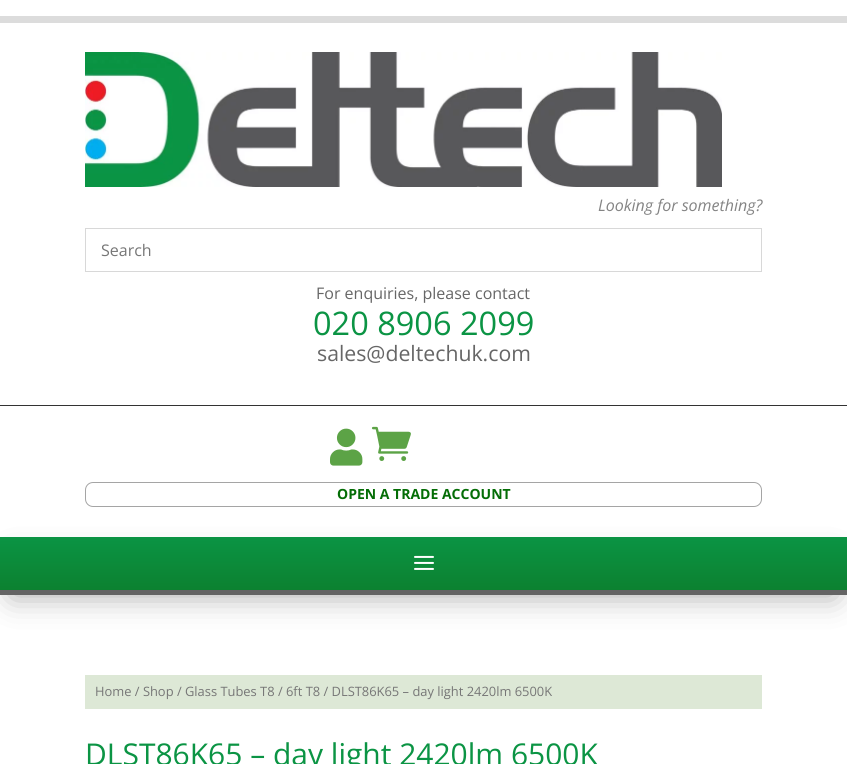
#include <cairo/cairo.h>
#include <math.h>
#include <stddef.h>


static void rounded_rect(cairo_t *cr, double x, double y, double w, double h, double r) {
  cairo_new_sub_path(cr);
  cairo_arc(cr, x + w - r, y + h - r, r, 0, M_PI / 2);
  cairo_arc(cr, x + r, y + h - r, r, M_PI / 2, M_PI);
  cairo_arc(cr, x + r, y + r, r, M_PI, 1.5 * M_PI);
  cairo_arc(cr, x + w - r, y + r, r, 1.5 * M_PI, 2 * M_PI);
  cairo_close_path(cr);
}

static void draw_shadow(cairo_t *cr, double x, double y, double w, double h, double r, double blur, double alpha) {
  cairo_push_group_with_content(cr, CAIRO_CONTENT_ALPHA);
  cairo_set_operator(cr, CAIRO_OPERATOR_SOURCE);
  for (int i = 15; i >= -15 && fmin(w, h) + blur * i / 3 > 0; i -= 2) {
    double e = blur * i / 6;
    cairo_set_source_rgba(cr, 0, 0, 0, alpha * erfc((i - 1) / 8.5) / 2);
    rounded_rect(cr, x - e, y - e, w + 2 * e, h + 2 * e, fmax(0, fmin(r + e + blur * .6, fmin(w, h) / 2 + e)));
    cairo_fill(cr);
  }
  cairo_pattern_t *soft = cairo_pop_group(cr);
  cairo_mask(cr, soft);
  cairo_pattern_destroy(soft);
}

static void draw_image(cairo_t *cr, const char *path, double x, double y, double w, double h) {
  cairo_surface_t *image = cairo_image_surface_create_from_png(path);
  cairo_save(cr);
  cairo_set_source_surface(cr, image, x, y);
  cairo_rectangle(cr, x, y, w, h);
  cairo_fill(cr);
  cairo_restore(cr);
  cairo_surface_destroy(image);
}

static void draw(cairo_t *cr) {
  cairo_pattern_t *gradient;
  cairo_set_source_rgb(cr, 1, 1, 1);
  cairo_paint(cr);
  cairo_set_source_rgb(cr, 220 / 255.0, 220 / 255.0, 220 / 255.0);
  cairo_rectangle(cr, 0, 16, 847, 7);
  cairo_fill(cr);
  draw_image(cr, "images/1.png", 85, 52, 637, 135);
  cairo_rectangle(cr, 85.5, 228.5, 676, 43);
  cairo_set_source_rgb(cr, 216 / 255.0, 216 / 255.0, 216 / 255.0);
  cairo_set_line_width(cr, 1);
  cairo_stroke(cr);
  cairo_set_source_rgb(cr, 51 / 255.0, 51 / 255.0, 51 / 255.0);
  cairo_rectangle(cr, 0, 405, 847, 1);
  cairo_fill(cr);
  draw_image(cr, "images/2.png", 330, 428, 33, 38);
  draw_image(cr, "images/3.png", 371, 426, 40, 35);
  rounded_rect(cr, 85.5, 482.5, 676, 24, 7.5);
  cairo_set_source_rgb(cr, 165 / 255.0, 165 / 255.0, 165 / 255.0);
  cairo_stroke(cr);
  cairo_set_source_rgb(cr, 0, 0, 0);
  draw_shadow(cr, 12, 561, 823, 34, 0, 16, 0.35);
  gradient = cairo_pattern_create_linear(424, 537, 424, 590);
  cairo_pattern_add_color_stop_rgba(gradient, 0, 11 / 255.0, 148 / 255.0, 68 / 255.0, 1);
  cairo_pattern_add_color_stop_rgba(gradient, 1, 12 / 255.0, 129 / 255.0, 48 / 255.0, 1);
  cairo_set_source(cr, gradient);
  cairo_pattern_destroy(gradient);
  cairo_rectangle(cr, 0, 537, 847, 53);
  cairo_fill(cr);
  cairo_set_source_rgb(cr, 100 / 255.0, 100 / 255.0, 100 / 255.0);
  cairo_rectangle(cr, 0, 590, 847, 5);
  cairo_fill(cr);
  draw_image(cr, "images/4.png", 414, 555, 20, 15);
  cairo_set_source_rgb(cr, 221 / 255.0, 232 / 255.0, 214 / 255.0);
  cairo_rectangle(cr, 85, 675, 677, 34);
  cairo_fill(cr);
  cairo_select_font_face(cr, "Open Sans", CAIRO_FONT_SLANT_ITALIC, CAIRO_FONT_WEIGHT_NORMAL);
  cairo_set_font_size(cr, 16);
  cairo_set_source_rgb(cr, 132 / 255.0, 132 / 255.0, 132 / 255.0);
  cairo_move_to(cr, 598, 211);
  cairo_show_text(cr, "Looking for something?");
  cairo_select_font_face(cr, "Open Sans", CAIRO_FONT_SLANT_NORMAL, CAIRO_FONT_WEIGHT_NORMAL);
  cairo_set_source_rgb(cr, 118 / 255.0, 118 / 255.0, 118 / 255.0);
  cairo_move_to(cr, 101, 256);
  cairo_show_text(cr, "Search");
  cairo_set_source_rgb(cr, 102 / 255.0, 102 / 255.0, 102 / 255.0);
  cairo_move_to(cr, 316, 299);
  cairo_show_text(cr, "For enquiries, please contact");
  cairo_set_font_size(cr, 32.5);
  cairo_set_source_rgb(cr, 11 / 255.0, 148 / 255.0, 68 / 255.0);
  cairo_move_to(cr, 313, 335);
  cairo_show_text(cr, "020 8906 2099");
  cairo_set_font_size(cr, 21.25);
  cairo_set_source_rgb(cr, 102 / 255.0, 102 / 255.0, 102 / 255.0);
  cairo_move_to(cr, 317, 361);
  cairo_show_text(cr, "sales@deltechuk.com");
  cairo_select_font_face(cr, "Open Sans", CAIRO_FONT_SLANT_NORMAL, CAIRO_FONT_WEIGHT_BOLD);
  cairo_set_font_size(cr, 14);
  cairo_set_source_rgb(cr, 4 / 255.0, 109 / 255.0, 6 / 255.0);
  cairo_move_to(cr, 337, 499);
  cairo_show_text(cr, "OPEN A TRADE ACCOUNT");
  cairo_select_font_face(cr, "Open Sans", CAIRO_FONT_SLANT_NORMAL, CAIRO_FONT_WEIGHT_NORMAL);
  cairo_set_font_size(cr, 12.9);
  cairo_set_source_rgb(cr, 118 / 255.0, 118 / 255.0, 118 / 255.0);
  cairo_move_to(cr, 95, 696);
  cairo_show_text(cr, "Home / Shop / Glass Tubes T8 / 6ft T8 / DLST86K65 – day light 2420lm 6500K");
  cairo_set_font_size(cr, 30);
  cairo_set_source_rgb(cr, 11 / 255.0, 148 / 255.0, 68 / 255.0);
  cairo_move_to(cr, 85, 765);
  cairo_show_text(cr, "DLST86K65 – day light 2420lm 6500K");
}

int main(void) {
  cairo_surface_t *surface = cairo_image_surface_create(CAIRO_FORMAT_RGB24, 847, 764);
  cairo_t *cr = cairo_create(surface);
  cairo_font_options_t *options = cairo_font_options_create();
  cairo_font_options_set_hint_metrics(options, CAIRO_HINT_METRICS_OFF);
  cairo_font_options_set_hint_style(options, CAIRO_HINT_STYLE_NONE);
  cairo_set_font_options(cr, options);
  cairo_set_miter_limit(cr, 4);
  draw(cr);
  cairo_surface_write_to_png(surface, "out.png");
  cairo_font_options_destroy(options);
  cairo_destroy(cr);
  cairo_surface_destroy(surface);
  return 0;
}
